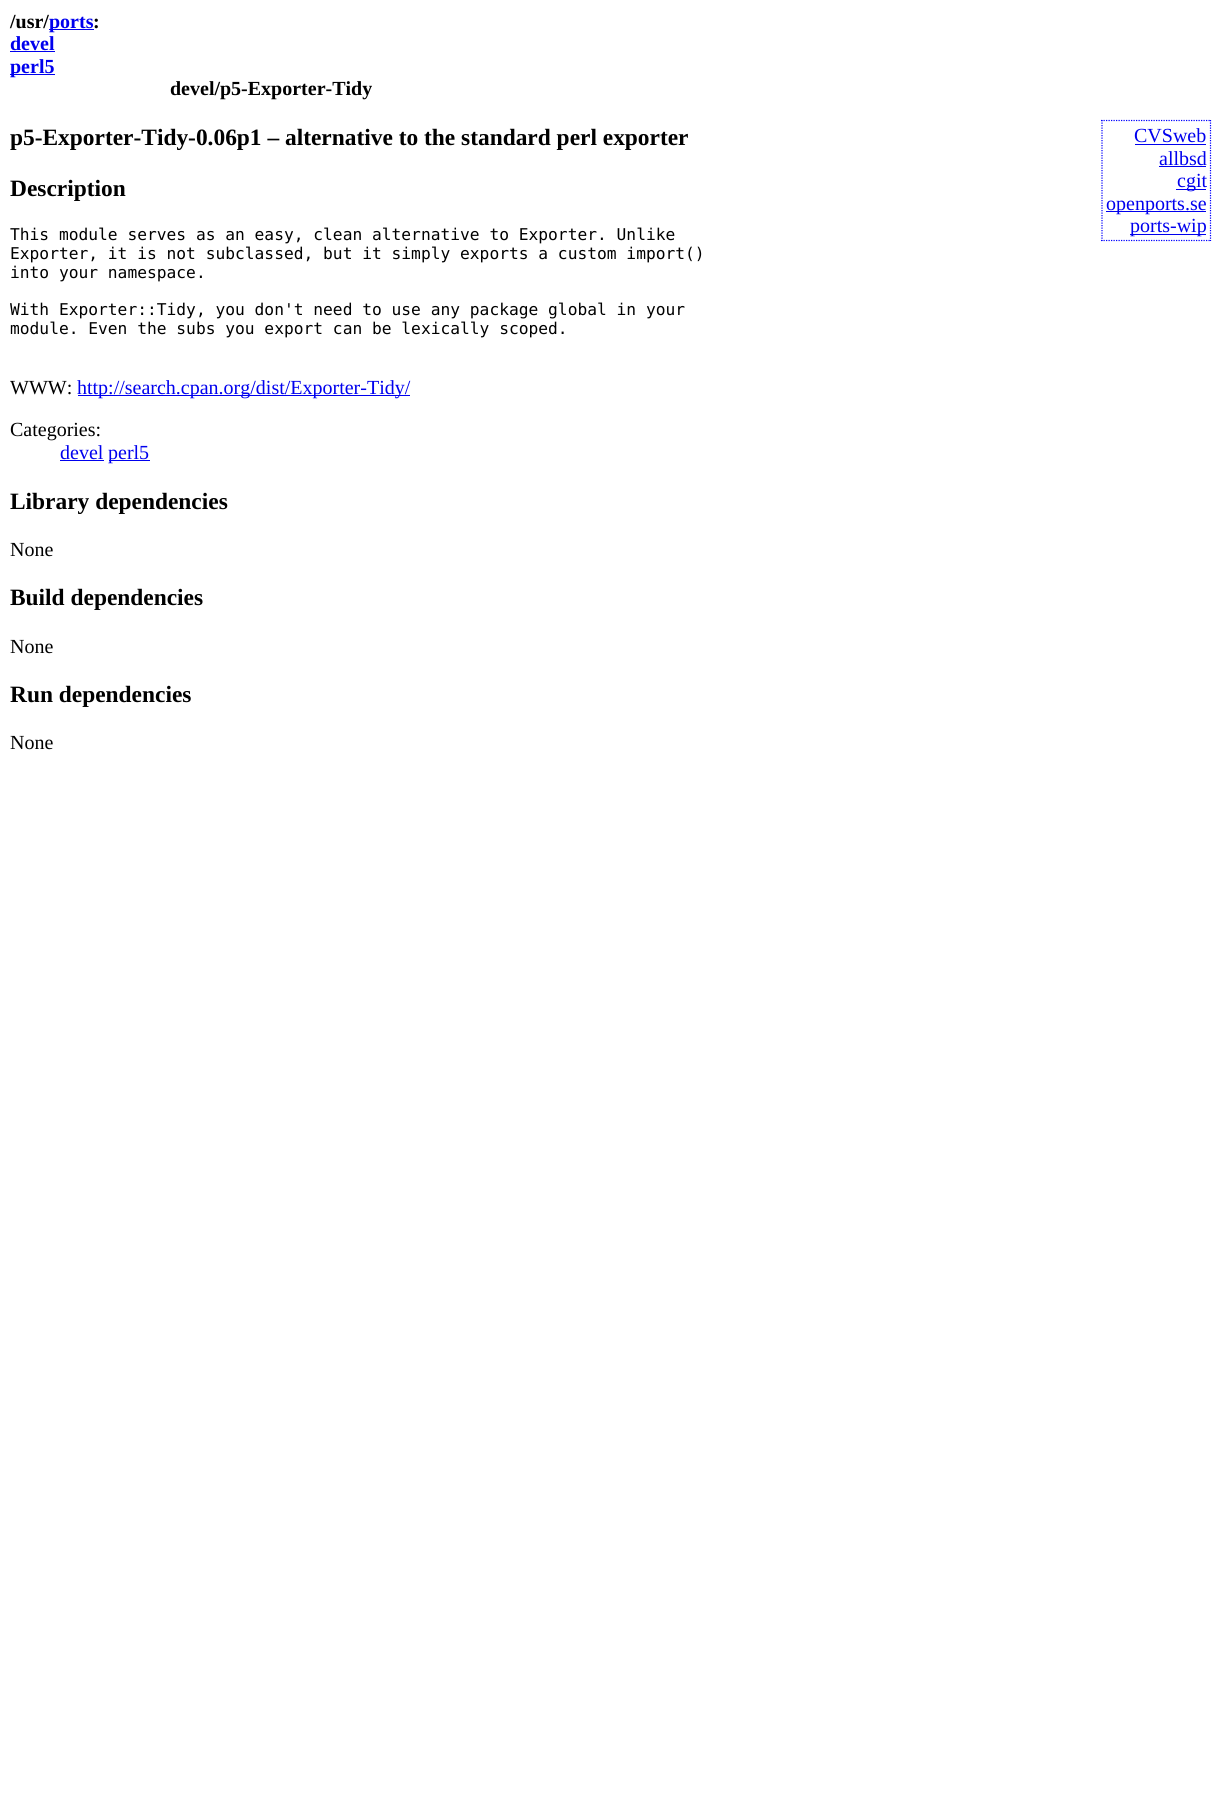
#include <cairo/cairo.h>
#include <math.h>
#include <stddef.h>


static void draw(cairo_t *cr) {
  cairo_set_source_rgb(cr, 1, 1, 1);
  cairo_paint(cr);
  cairo_set_source_rgb(cr, 0, 0, 238 / 255.0);
  cairo_rectangle(cr, 49, 29, 45, 1);
  cairo_fill(cr);
  cairo_rectangle(cr, 10, 51, 45, 1);
  cairo_fill(cr);
  cairo_rectangle(cr, 10, 74, 45, 1);
  cairo_fill(cr);
  cairo_new_path(cr);
  cairo_move_to(cr, 1101, 120.5);
  cairo_line_to(cr, 1211, 120.5);
  cairo_set_source_rgb(cr, 0, 0, 1);
  cairo_set_line_width(cr, 1.2);
  cairo_set_dash(cr, (double[]){1.25, 1.25}, 2, 0);
  cairo_stroke(cr);
  cairo_new_path(cr);
  cairo_move_to(cr, 1210.5, 120);
  cairo_line_to(cr, 1210.5, 241);
  cairo_stroke(cr);
  cairo_new_path(cr);
  cairo_move_to(cr, 1101, 240.5);
  cairo_line_to(cr, 1211, 240.5);
  cairo_stroke(cr);
  cairo_new_path(cr);
  cairo_move_to(cr, 1102, 120);
  cairo_line_to(cr, 1102, 241);
  cairo_stroke(cr);
  cairo_set_source_rgb(cr, 0, 0, 238 / 255.0);
  cairo_rectangle(cr, 1135, 144, 71, 1);
  cairo_fill(cr);
  cairo_rectangle(cr, 1159, 166, 47, 1);
  cairo_fill(cr);
  cairo_rectangle(cr, 1176, 189, 30, 1);
  cairo_fill(cr);
  cairo_rectangle(cr, 1106, 211, 100, 1);
  cairo_fill(cr);
  cairo_rectangle(cr, 1130, 234, 76, 1);
  cairo_fill(cr);
  cairo_rectangle(cr, 78, 395, 332, 1);
  cairo_fill(cr);
  cairo_rectangle(cr, 60, 460, 44, 1);
  cairo_fill(cr);
  cairo_rectangle(cr, 109, 460, 41, 1);
  cairo_fill(cr);
  cairo_select_font_face(cr, "Liberation Serif", CAIRO_FONT_SLANT_NORMAL, CAIRO_FONT_WEIGHT_BOLD);
  cairo_set_font_size(cr, 20);
  cairo_set_source_rgb(cr, 0, 0, 0);
  cairo_move_to(cr, 10, 28);
  cairo_show_text(cr, "/usr/");
  cairo_set_source_rgb(cr, 0, 0, 238 / 255.0);
  cairo_move_to(cr, 49, 28);
  cairo_show_text(cr, "ports");
  cairo_set_source_rgb(cr, 0, 0, 0);
  cairo_move_to(cr, 93, 28);
  cairo_show_text(cr, ":");
  cairo_set_source_rgb(cr, 0, 0, 238 / 255.0);
  cairo_move_to(cr, 10, 50);
  cairo_show_text(cr, "devel");
  cairo_move_to(cr, 10, 73);
  cairo_show_text(cr, "perl5");
  cairo_set_source_rgb(cr, 0, 0, 0);
  cairo_move_to(cr, 170, 95);
  cairo_show_text(cr, "devel/p5-Exporter-Tidy");
  cairo_set_font_size(cr, 23.4);
  cairo_move_to(cr, 10, 145);
  cairo_show_text(cr, "p5-Exporter-Tidy-0.06p1 – alternative to the standard perl exporter");
  cairo_select_font_face(cr, "Liberation Serif", CAIRO_FONT_SLANT_NORMAL, CAIRO_FONT_WEIGHT_NORMAL);
  cairo_set_font_size(cr, 20);
  cairo_set_source_rgb(cr, 0, 0, 238 / 255.0);
  cairo_move_to(cr, 1134, 142);
  cairo_show_text(cr, "CVSweb");
  cairo_move_to(cr, 1159, 165);
  cairo_show_text(cr, "allbsd");
  cairo_move_to(cr, 1177, 187);
  cairo_show_text(cr, "cgit");
  cairo_move_to(cr, 1106, 210);
  cairo_show_text(cr, "openports.se");
  cairo_move_to(cr, 1130, 232);
  cairo_show_text(cr, "ports-wip");
  cairo_select_font_face(cr, "Liberation Serif", CAIRO_FONT_SLANT_NORMAL, CAIRO_FONT_WEIGHT_BOLD);
  cairo_set_font_size(cr, 23.4);
  cairo_set_source_rgb(cr, 0, 0, 0);
  cairo_move_to(cr, 10, 196);
  cairo_show_text(cr, "Description");
  cairo_select_font_face(cr, "DejaVu Sans Mono", CAIRO_FONT_SLANT_NORMAL, CAIRO_FONT_WEIGHT_NORMAL);
  cairo_set_font_size(cr, 16.25);
  cairo_move_to(cr, 10, 240);
  cairo_show_text(cr, "This module serves as an easy, clean alternative to Exporter. Unlike");
  cairo_move_to(cr, 10, 259);
  cairo_show_text(cr, "Exporter, it is not subclassed, but it simply exports a custom import()");
  cairo_move_to(cr, 10, 278);
  cairo_show_text(cr, "into your namespace.");
  cairo_move_to(cr, 10, 315);
  cairo_show_text(cr, "With Exporter::Tidy, you don't need to use any package global in your");
  cairo_move_to(cr, 10, 334);
  cairo_show_text(cr, "module. Even the subs you export can be lexically scoped.");
  cairo_select_font_face(cr, "Liberation Serif", CAIRO_FONT_SLANT_NORMAL, CAIRO_FONT_WEIGHT_NORMAL);
  cairo_set_font_size(cr, 20);
  cairo_move_to(cr, 10, 394);
  cairo_show_text(cr, "WWW:");
  cairo_set_source_rgb(cr, 0, 0, 238 / 255.0);
  cairo_move_to(cr, 77, 394);
  cairo_show_text(cr, "http://search.cpan.org/dist/Exporter-Tidy/");
  cairo_set_source_rgb(cr, 0, 0, 0);
  cairo_move_to(cr, 10, 436);
  cairo_show_text(cr, "Categories:");
  cairo_set_source_rgb(cr, 0, 0, 238 / 255.0);
  cairo_move_to(cr, 60, 459);
  cairo_show_text(cr, "devel");
  cairo_move_to(cr, 108, 459);
  cairo_show_text(cr, "perl5");
  cairo_select_font_face(cr, "Liberation Serif", CAIRO_FONT_SLANT_NORMAL, CAIRO_FONT_WEIGHT_BOLD);
  cairo_set_font_size(cr, 23.4);
  cairo_set_source_rgb(cr, 0, 0, 0);
  cairo_move_to(cr, 10, 509);
  cairo_show_text(cr, "Library dependencies");
  cairo_select_font_face(cr, "Liberation Serif", CAIRO_FONT_SLANT_NORMAL, CAIRO_FONT_WEIGHT_NORMAL);
  cairo_set_font_size(cr, 20);
  cairo_move_to(cr, 10, 556);
  cairo_show_text(cr, "None");
  cairo_select_font_face(cr, "Liberation Serif", CAIRO_FONT_SLANT_NORMAL, CAIRO_FONT_WEIGHT_BOLD);
  cairo_set_font_size(cr, 23.4);
  cairo_move_to(cr, 10, 605);
  cairo_show_text(cr, "Build dependencies");
  cairo_select_font_face(cr, "Liberation Serif", CAIRO_FONT_SLANT_NORMAL, CAIRO_FONT_WEIGHT_NORMAL);
  cairo_set_font_size(cr, 20);
  cairo_move_to(cr, 10, 653);
  cairo_show_text(cr, "None");
  cairo_select_font_face(cr, "Liberation Serif", CAIRO_FONT_SLANT_NORMAL, CAIRO_FONT_WEIGHT_BOLD);
  cairo_set_font_size(cr, 23.4);
  cairo_move_to(cr, 10, 702);
  cairo_show_text(cr, "Run dependencies");
  cairo_select_font_face(cr, "Liberation Serif", CAIRO_FONT_SLANT_NORMAL, CAIRO_FONT_WEIGHT_NORMAL);
  cairo_set_font_size(cr, 20);
  cairo_move_to(cr, 10, 749);
  cairo_show_text(cr, "None");
}

int main(void) {
  cairo_surface_t *surface = cairo_image_surface_create(CAIRO_FORMAT_RGB24, 1221, 1802);
  cairo_t *cr = cairo_create(surface);
  cairo_font_options_t *options = cairo_font_options_create();
  cairo_font_options_set_hint_metrics(options, CAIRO_HINT_METRICS_OFF);
  cairo_font_options_set_hint_style(options, CAIRO_HINT_STYLE_NONE);
  cairo_set_font_options(cr, options);
  cairo_set_miter_limit(cr, 4);
  draw(cr);
  cairo_surface_write_to_png(surface, "out.png");
  cairo_font_options_destroy(options);
  cairo_destroy(cr);
  cairo_surface_destroy(surface);
  return 0;
}
